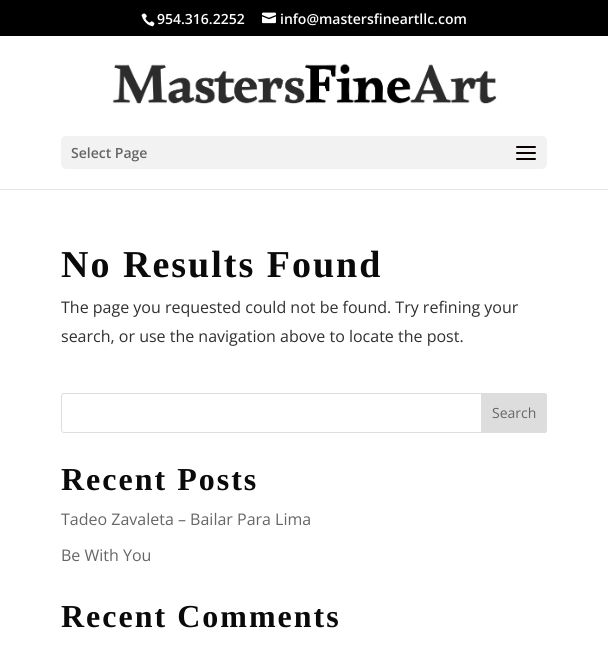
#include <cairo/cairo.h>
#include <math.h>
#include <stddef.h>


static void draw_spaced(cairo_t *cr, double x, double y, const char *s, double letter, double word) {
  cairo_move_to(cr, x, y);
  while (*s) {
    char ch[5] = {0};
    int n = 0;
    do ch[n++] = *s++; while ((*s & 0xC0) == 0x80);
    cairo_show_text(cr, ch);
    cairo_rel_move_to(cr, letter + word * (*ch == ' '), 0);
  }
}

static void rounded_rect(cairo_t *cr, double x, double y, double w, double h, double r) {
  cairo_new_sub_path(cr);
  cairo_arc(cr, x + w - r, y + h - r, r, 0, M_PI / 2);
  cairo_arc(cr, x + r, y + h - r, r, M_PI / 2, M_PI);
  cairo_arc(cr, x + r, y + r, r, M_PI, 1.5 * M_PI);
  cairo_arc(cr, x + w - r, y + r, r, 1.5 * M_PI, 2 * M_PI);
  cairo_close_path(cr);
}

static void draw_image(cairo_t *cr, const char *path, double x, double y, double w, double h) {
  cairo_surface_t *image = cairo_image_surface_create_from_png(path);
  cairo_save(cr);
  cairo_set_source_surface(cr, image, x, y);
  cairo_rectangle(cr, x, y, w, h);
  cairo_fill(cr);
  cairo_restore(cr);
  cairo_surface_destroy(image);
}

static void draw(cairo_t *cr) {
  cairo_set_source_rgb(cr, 1, 1, 1);
  cairo_paint(cr);
  cairo_set_source_rgb(cr, 0, 0, 0);
  cairo_rectangle(cr, 0, 0, 608, 36);
  cairo_fill(cr);
  draw_image(cr, "images/1.png", 141, 13, 14, 14);
  draw_image(cr, "images/2.png", 262, 12, 14, 12);
  cairo_set_source_rgb(cr, 230 / 255.0, 230 / 255.0, 230 / 255.0);
  cairo_rectangle(cr, 0, 189, 608, 1);
  cairo_fill(cr);
  draw_image(cr, "images/3.png", 112, 63, 385, 41);
  cairo_set_source_rgb(cr, 242 / 255.0, 242 / 255.0, 242 / 255.0);
  rounded_rect(cr, 61, 136, 486, 33, 5);
  cairo_fill(cr);
  draw_image(cr, "images/4.png", 516, 146, 20, 14);
  rounded_rect(cr, 61.5, 393.5, 485, 39, 2.5);
  cairo_set_source_rgb(cr, 221 / 255.0, 221 / 255.0, 221 / 255.0);
  cairo_set_line_width(cr, 1);
  cairo_stroke(cr);
  cairo_new_path(cr);
  cairo_move_to(cr, 481.5, 393.5);
  cairo_line_to(cr, 544, 393.5);
  cairo_curve_to(cr, 545.5, 393.5, 546.5, 394.5, 546.5, 396);
  cairo_line_to(cr, 546.5, 430);
  cairo_curve_to(cr, 546.5, 431.5, 545.5, 432.5, 544, 432.5);
  cairo_line_to(cr, 481.5, 432.5);
  cairo_close_path(cr);
  cairo_fill_preserve(cr);
  cairo_stroke(cr);
  cairo_select_font_face(cr, "Open Sans SemiBold", CAIRO_FONT_SLANT_NORMAL, CAIRO_FONT_WEIGHT_NORMAL);
  cairo_set_font_size(cr, 14);
  cairo_set_source_rgb(cr, 1, 1, 1);
  cairo_move_to(cr, 157, 24);
  cairo_show_text(cr, "954.316.2252");
  cairo_move_to(cr, 280, 24);
  cairo_show_text(cr, "info@mastersfineartllc.com");
  cairo_set_source_rgb(cr, 102 / 255.0, 102 / 255.0, 102 / 255.0);
  cairo_move_to(cr, 71, 158);
  cairo_show_text(cr, "Select Page");
  cairo_select_font_face(cr, "Liberation Serif", CAIRO_FONT_SLANT_NORMAL, CAIRO_FONT_WEIGHT_BOLD);
  cairo_set_font_size(cr, 38);
  cairo_set_source_rgb(cr, 10 / 255.0, 10 / 255.0, 10 / 255.0);
  draw_spaced(cr, 61, 277, "No Results Found", 2, 0);
  cairo_select_font_face(cr, "Open Sans", CAIRO_FONT_SLANT_NORMAL, CAIRO_FONT_WEIGHT_NORMAL);
  cairo_set_font_size(cr, 16);
  cairo_set_source_rgb(cr, 48 / 255.0, 48 / 255.0, 48 / 255.0);
  cairo_move_to(cr, 61, 313);
  cairo_show_text(cr, "The page you requested could not be found. Try refining your");
  cairo_move_to(cr, 61, 342);
  cairo_show_text(cr, "search, or use the navigation above to locate the post.");
  cairo_set_font_size(cr, 14);
  cairo_set_source_rgb(cr, 102 / 255.0, 102 / 255.0, 102 / 255.0);
  cairo_move_to(cr, 492, 418);
  cairo_show_text(cr, "Search");
  cairo_select_font_face(cr, "Liberation Serif", CAIRO_FONT_SLANT_NORMAL, CAIRO_FONT_WEIGHT_BOLD);
  cairo_set_font_size(cr, 32);
  cairo_set_source_rgb(cr, 10 / 255.0, 10 / 255.0, 10 / 255.0);
  draw_spaced(cr, 61, 490, "Recent Posts", 2, 0);
  cairo_select_font_face(cr, "Open Sans", CAIRO_FONT_SLANT_NORMAL, CAIRO_FONT_WEIGHT_NORMAL);
  cairo_set_font_size(cr, 16);
  cairo_set_source_rgb(cr, 102 / 255.0, 102 / 255.0, 102 / 255.0);
  cairo_move_to(cr, 61, 525);
  cairo_show_text(cr, "Tadeo Zavaleta – Bailar Para Lima");
  cairo_move_to(cr, 61, 561);
  cairo_show_text(cr, "Be With You");
  cairo_select_font_face(cr, "Liberation Serif", CAIRO_FONT_SLANT_NORMAL, CAIRO_FONT_WEIGHT_BOLD);
  cairo_set_font_size(cr, 32);
  cairo_set_source_rgb(cr, 10 / 255.0, 10 / 255.0, 10 / 255.0);
  draw_spaced(cr, 61, 627, "Recent Comments", 2, 0);
}

int main(void) {
  cairo_surface_t *surface = cairo_image_surface_create(CAIRO_FORMAT_RGB24, 608, 648);
  cairo_t *cr = cairo_create(surface);
  cairo_font_options_t *options = cairo_font_options_create();
  cairo_font_options_set_hint_metrics(options, CAIRO_HINT_METRICS_OFF);
  cairo_font_options_set_hint_style(options, CAIRO_HINT_STYLE_NONE);
  cairo_set_font_options(cr, options);
  cairo_set_miter_limit(cr, 4);
  draw(cr);
  cairo_surface_write_to_png(surface, "out.png");
  cairo_font_options_destroy(options);
  cairo_destroy(cr);
  cairo_surface_destroy(surface);
  return 0;
}
